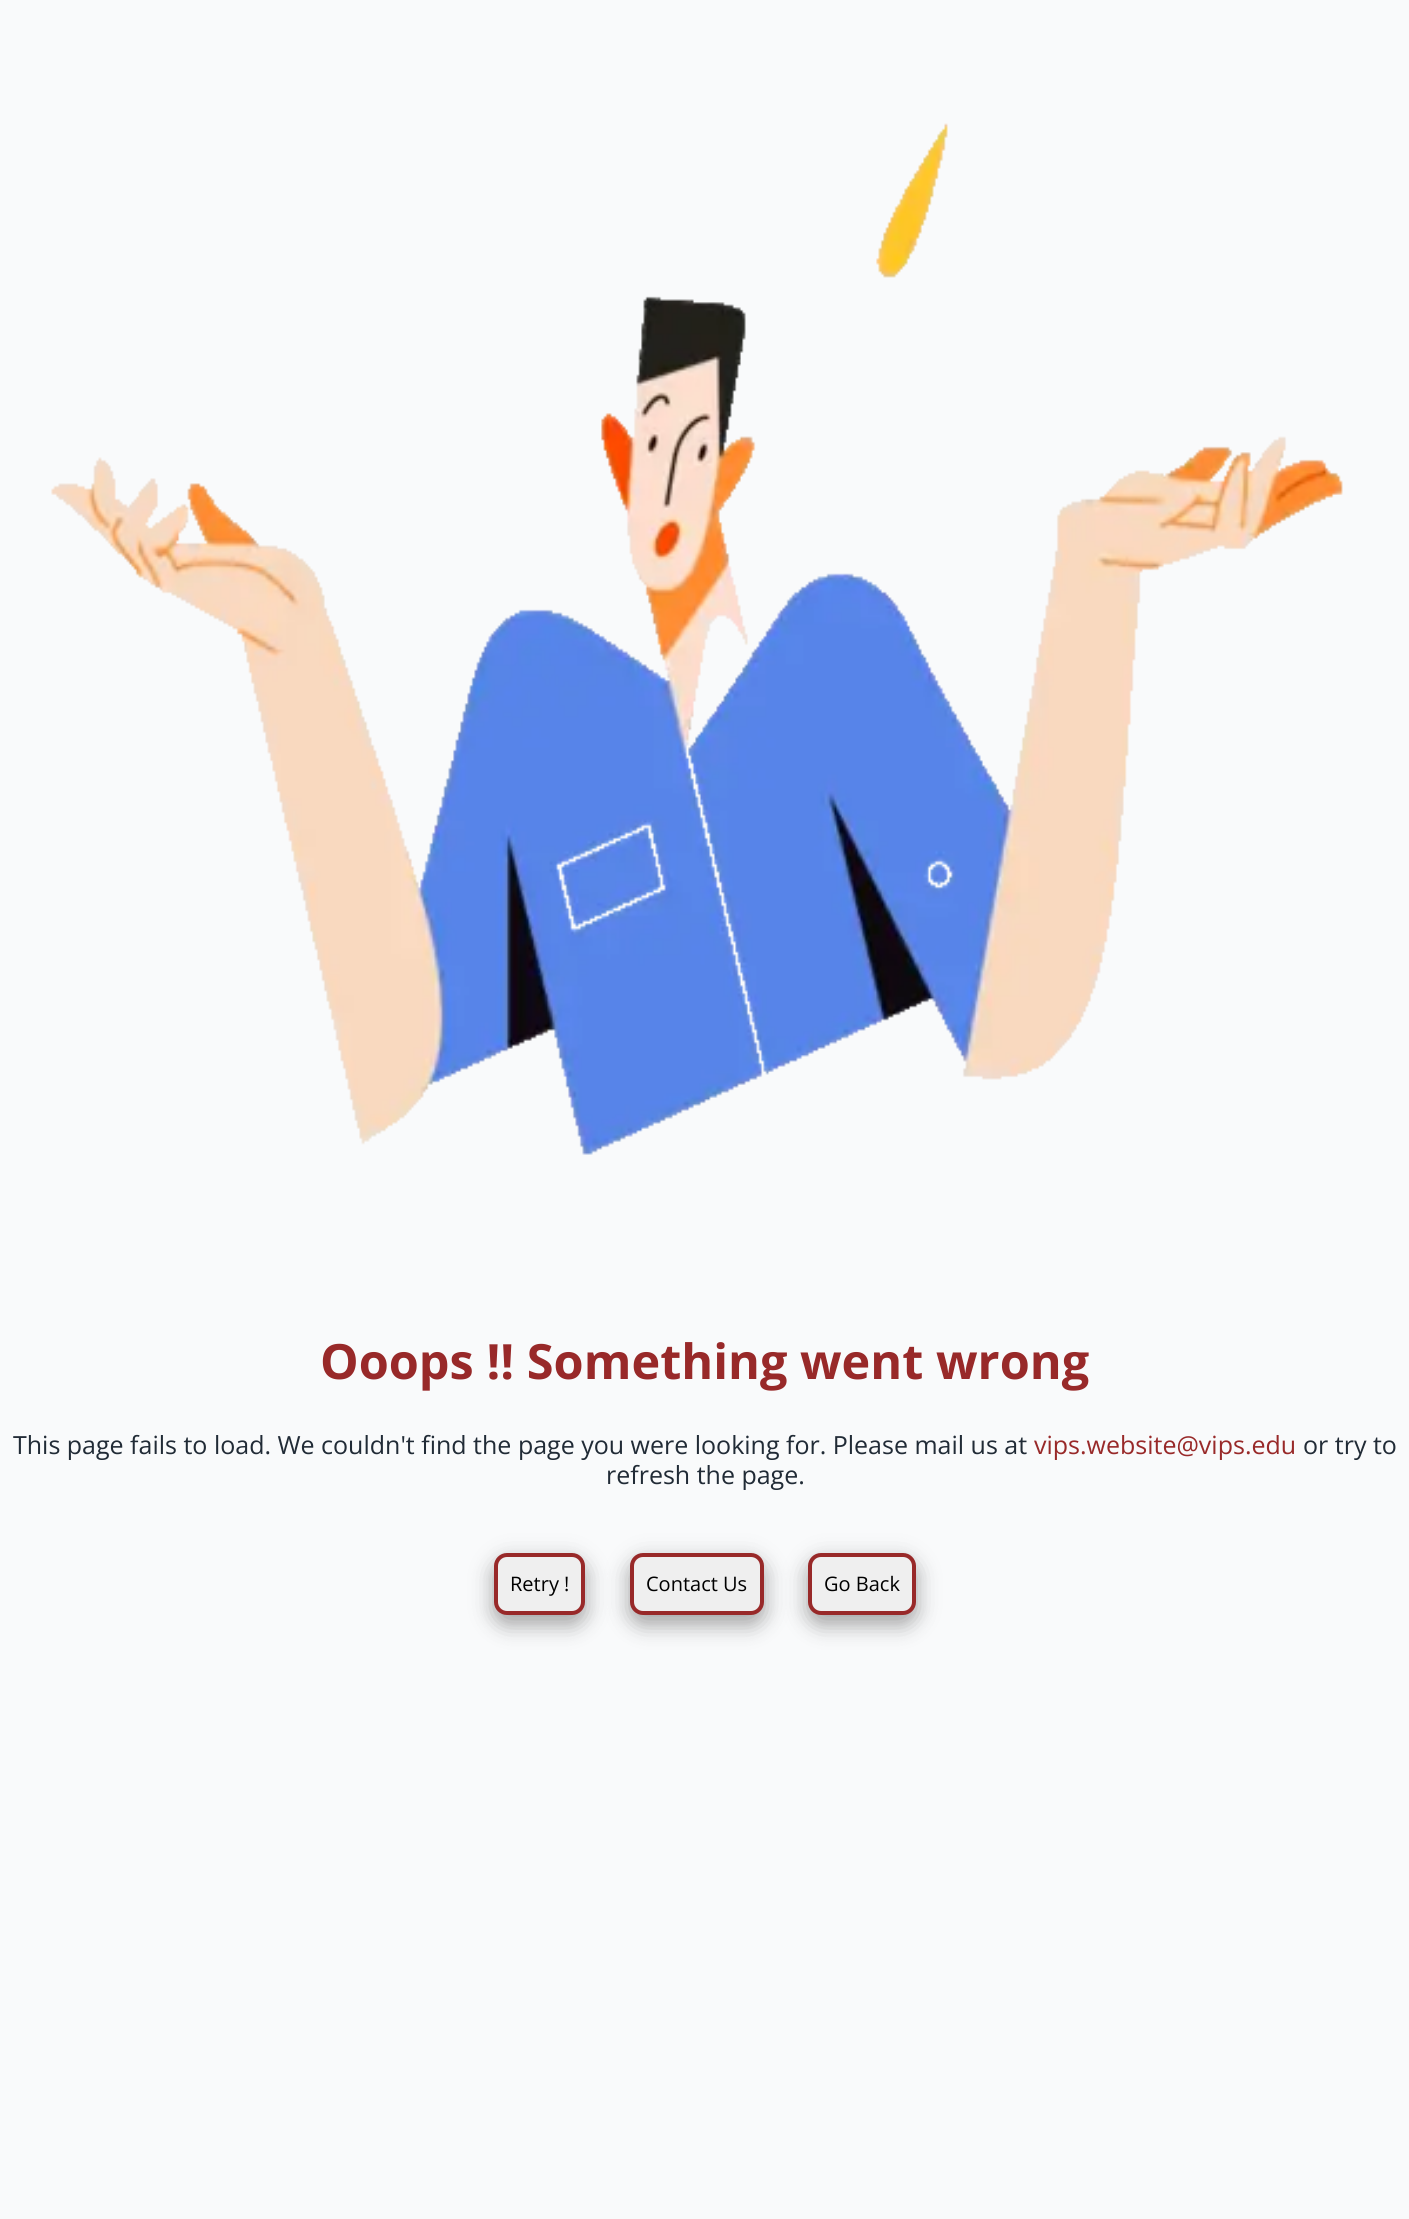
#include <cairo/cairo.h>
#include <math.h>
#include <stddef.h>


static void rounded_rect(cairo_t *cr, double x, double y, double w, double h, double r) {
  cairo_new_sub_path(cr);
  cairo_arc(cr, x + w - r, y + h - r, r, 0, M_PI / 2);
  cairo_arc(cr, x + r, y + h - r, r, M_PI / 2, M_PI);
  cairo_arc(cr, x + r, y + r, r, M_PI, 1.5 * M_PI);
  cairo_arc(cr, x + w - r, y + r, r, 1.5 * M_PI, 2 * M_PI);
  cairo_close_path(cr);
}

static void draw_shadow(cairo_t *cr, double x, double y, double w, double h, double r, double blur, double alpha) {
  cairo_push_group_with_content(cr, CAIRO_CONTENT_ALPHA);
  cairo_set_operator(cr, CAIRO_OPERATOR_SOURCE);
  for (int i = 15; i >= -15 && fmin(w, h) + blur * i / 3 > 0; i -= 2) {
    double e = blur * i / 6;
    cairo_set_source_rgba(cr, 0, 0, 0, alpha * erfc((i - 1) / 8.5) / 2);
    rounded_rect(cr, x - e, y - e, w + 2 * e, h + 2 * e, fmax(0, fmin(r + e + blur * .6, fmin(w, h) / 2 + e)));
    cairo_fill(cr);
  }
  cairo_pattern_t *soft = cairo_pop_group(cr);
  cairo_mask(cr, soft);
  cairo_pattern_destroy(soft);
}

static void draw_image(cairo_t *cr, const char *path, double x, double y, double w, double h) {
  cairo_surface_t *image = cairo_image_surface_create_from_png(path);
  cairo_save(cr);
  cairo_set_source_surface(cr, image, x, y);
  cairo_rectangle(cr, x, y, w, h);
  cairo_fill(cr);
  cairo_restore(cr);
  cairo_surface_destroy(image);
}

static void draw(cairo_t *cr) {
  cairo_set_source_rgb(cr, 249 / 255.0, 250 / 255.0, 251 / 255.0);
  cairo_paint(cr);
  draw_image(cr, "images/1.png", 51, 123, 1292, 1032);
  cairo_set_source_rgb(cr, 0, 0, 0);
  draw_shadow(cr, 494, 1560, 91, 63, 13, 12.5, 0.19);
  draw_shadow(cr, 494, 1563, 91, 62, 13, 10, 0.2);
  cairo_set_source_rgb(cr, 239 / 255.0, 239 / 255.0, 239 / 255.0);
  rounded_rect(cr, 496, 1555, 87, 58, 11);
  cairo_fill_preserve(cr);
  cairo_set_source_rgb(cr, 152 / 255.0, 41 / 255.0, 41 / 255.0);
  cairo_set_line_width(cr, 4);
  cairo_stroke(cr);
  cairo_set_source_rgb(cr, 0, 0, 0);
  draw_shadow(cr, 630, 1560, 134, 63, 13, 12.5, 0.19);
  draw_shadow(cr, 630, 1563, 134, 62, 13, 10, 0.2);
  cairo_set_source_rgb(cr, 239 / 255.0, 239 / 255.0, 239 / 255.0);
  rounded_rect(cr, 632, 1555, 130, 58, 11);
  cairo_fill_preserve(cr);
  cairo_set_source_rgb(cr, 152 / 255.0, 41 / 255.0, 41 / 255.0);
  cairo_stroke(cr);
  cairo_set_source_rgb(cr, 0, 0, 0);
  draw_shadow(cr, 808, 1560, 108, 63, 13, 12.5, 0.19);
  draw_shadow(cr, 808, 1563, 108, 62, 13, 10, 0.2);
  cairo_set_source_rgb(cr, 239 / 255.0, 239 / 255.0, 239 / 255.0);
  rounded_rect(cr, 810, 1555, 104, 58, 11);
  cairo_fill_preserve(cr);
  cairo_set_source_rgb(cr, 152 / 255.0, 41 / 255.0, 41 / 255.0);
  cairo_stroke(cr);
  cairo_select_font_face(cr, "Open Sans", CAIRO_FONT_SLANT_NORMAL, CAIRO_FONT_WEIGHT_BOLD);
  cairo_set_font_size(cr, 48.6);
  cairo_move_to(cr, 320, 1379);
  cairo_show_text(cr, "Ooops !! Something went wrong");
  cairo_select_font_face(cr, "Open Sans", CAIRO_FONT_SLANT_NORMAL, CAIRO_FONT_WEIGHT_NORMAL);
  cairo_set_font_size(cr, 25);
  cairo_set_source_rgb(cr, 33 / 255.0, 43 / 255.0, 54 / 255.0);
  cairo_move_to(cr, 13, 1454);
  cairo_show_text(cr, "This page fails to load. We couldn't find the page you were looking for. Please mail us at");
  cairo_set_source_rgb(cr, 152 / 255.0, 41 / 255.0, 41 / 255.0);
  cairo_move_to(cr, 1034, 1454);
  cairo_show_text(cr, "vips.website@vips.edu");
  cairo_set_source_rgb(cr, 33 / 255.0, 43 / 255.0, 54 / 255.0);
  cairo_move_to(cr, 1303, 1454);
  cairo_show_text(cr, "or try to");
  cairo_move_to(cr, 606, 1484);
  cairo_show_text(cr, "refresh the page.");
  cairo_set_font_size(cr, 20);
  cairo_set_source_rgb(cr, 0, 0, 0);
  cairo_move_to(cr, 510, 1591);
  cairo_show_text(cr, "Retry !");
  cairo_move_to(cr, 646, 1591);
  cairo_show_text(cr, "Contact Us");
  cairo_move_to(cr, 824, 1591);
  cairo_show_text(cr, "Go Back");
}

int main(void) {
  cairo_surface_t *surface = cairo_image_surface_create(CAIRO_FORMAT_RGB24, 1409, 2219);
  cairo_t *cr = cairo_create(surface);
  cairo_font_options_t *options = cairo_font_options_create();
  cairo_font_options_set_hint_metrics(options, CAIRO_HINT_METRICS_OFF);
  cairo_font_options_set_hint_style(options, CAIRO_HINT_STYLE_NONE);
  cairo_set_font_options(cr, options);
  cairo_set_miter_limit(cr, 4);
  draw(cr);
  cairo_surface_write_to_png(surface, "out.png");
  cairo_font_options_destroy(options);
  cairo_destroy(cr);
  cairo_surface_destroy(surface);
  return 0;
}
